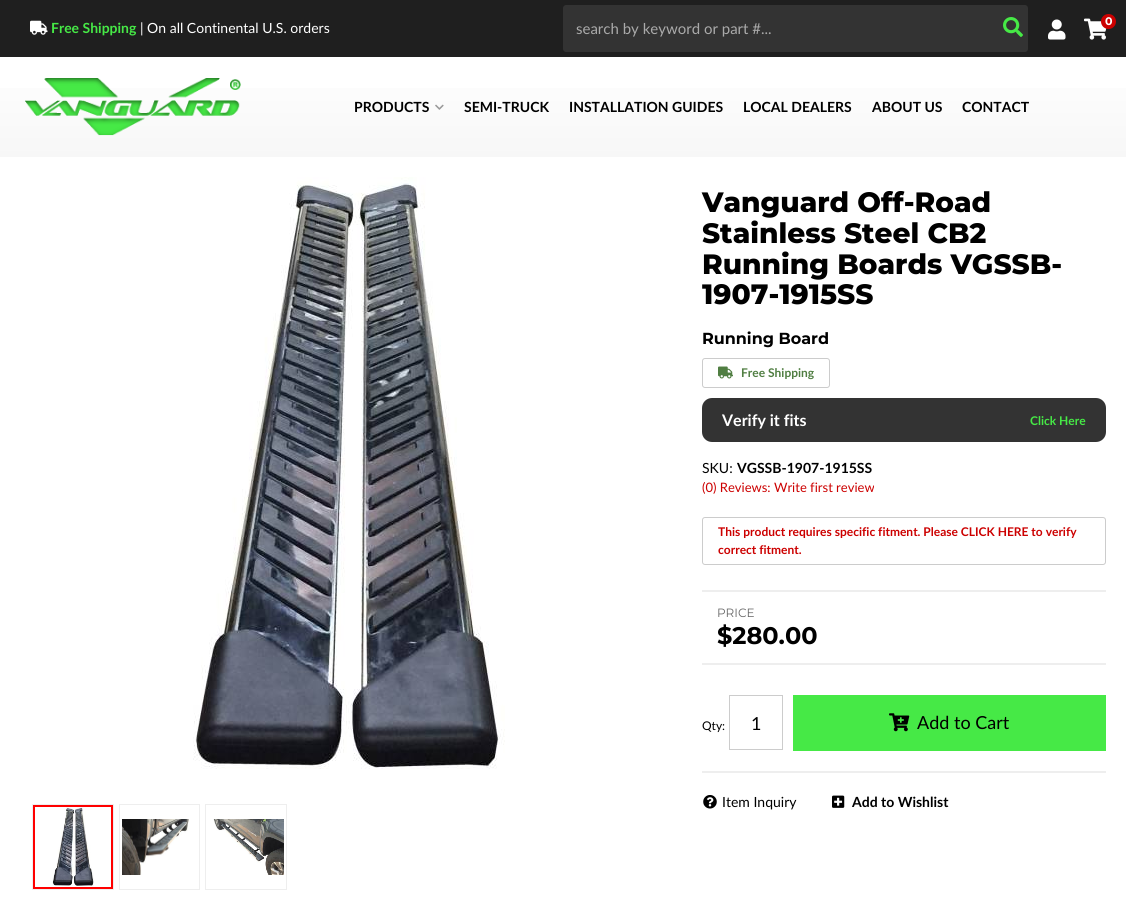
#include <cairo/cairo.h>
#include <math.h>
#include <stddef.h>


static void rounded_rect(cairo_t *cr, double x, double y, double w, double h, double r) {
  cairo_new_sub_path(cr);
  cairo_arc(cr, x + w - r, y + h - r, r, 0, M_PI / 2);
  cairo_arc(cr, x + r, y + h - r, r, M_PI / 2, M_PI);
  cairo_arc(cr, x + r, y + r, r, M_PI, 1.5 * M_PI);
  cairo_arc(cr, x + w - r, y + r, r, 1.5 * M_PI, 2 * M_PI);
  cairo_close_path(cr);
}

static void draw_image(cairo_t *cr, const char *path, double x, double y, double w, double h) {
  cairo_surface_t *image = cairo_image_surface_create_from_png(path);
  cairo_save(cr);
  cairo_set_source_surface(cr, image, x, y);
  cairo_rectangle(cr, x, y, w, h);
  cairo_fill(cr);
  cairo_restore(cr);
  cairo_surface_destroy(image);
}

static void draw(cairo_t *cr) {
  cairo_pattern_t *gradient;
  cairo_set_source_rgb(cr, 1, 1, 1);
  cairo_paint(cr);
  gradient = cairo_pattern_create_linear(563, 157, 563, 57);
  cairo_pattern_add_color_stop_rgba(gradient, 0, 247 / 255.0, 247 / 255.0, 247 / 255.0, 1);
  cairo_pattern_add_color_stop_rgba(gradient, 1, 1, 1, 1, 1);
  cairo_set_source(cr, gradient);
  cairo_pattern_destroy(gradient);
  cairo_rectangle(cr, 0, 88, 1126, 69);
  cairo_fill(cr);
  cairo_set_source_rgb(cr, 31 / 255.0, 31 / 255.0, 31 / 255.0);
  cairo_rectangle(cr, 0, 0, 1126, 57);
  cairo_fill(cr);
  draw_image(cr, "images/1.png", 1084, 18, 23, 22);
  cairo_set_source_rgb(cr, 204 / 255.0, 0, 0);
  cairo_arc(cr, 1108.5, 21.5, 7.5, 0, 2 * M_PI);
  cairo_fill(cr);
  draw_image(cr, "images/2.png", 25, 78, 216, 58);
  draw_image(cr, "images/3.png", 435, 104, 9, 6);
  draw_image(cr, "images/4.png", 30, 20, 18, 15);
  cairo_set_source_rgb(cr, 51 / 255.0, 51 / 255.0, 51 / 255.0);
  cairo_new_path(cr);
  cairo_move_to(cr, 566, 5);
  cairo_line_to(cr, 998, 5);
  cairo_line_to(cr, 998, 52);
  cairo_line_to(cr, 566, 52);
  cairo_curve_to(cr, 564.5, 52, 563, 50.5, 563, 49);
  cairo_line_to(cr, 563, 8);
  cairo_curve_to(cr, 563, 6.5, 564.5, 5, 566, 5);
  cairo_close_path(cr);
  cairo_fill(cr);
  cairo_new_path(cr);
  cairo_move_to(cr, 998, 5);
  cairo_line_to(cr, 1025, 5);
  cairo_curve_to(cr, 1026.5, 5, 1028, 6.5, 1028, 8);
  cairo_line_to(cr, 1028, 49);
  cairo_curve_to(cr, 1028, 50.5, 1026.5, 52, 1025, 52);
  cairo_line_to(cr, 998, 52);
  cairo_close_path(cr);
  cairo_fill(cr);
  draw_image(cr, "images/5.png", 1003, 17, 20, 20);
  draw_image(cr, "images/6.png", 1048, 19, 18, 21);
  draw_image(cr, "images/7.png", 193, 177, 312, 592);
  cairo_rectangle(cr, 32.5, 804.5, 81, 85);
  cairo_set_source_rgb(cr, 238 / 255.0, 238 / 255.0, 238 / 255.0);
  cairo_set_line_width(cr, 1);
  cairo_stroke(cr);
  draw_image(cr, "images/8.png", 52, 807, 42, 79);
  cairo_rectangle(cr, 34, 806, 78, 82);
  cairo_set_source_rgb(cr, 1, 0, 0);
  cairo_set_line_width(cr, 2);
  cairo_stroke(cr);
  cairo_rectangle(cr, 119.5, 804.5, 80, 85);
  cairo_set_source_rgb(cr, 238 / 255.0, 238 / 255.0, 238 / 255.0);
  cairo_set_line_width(cr, 1);
  cairo_stroke(cr);
  draw_image(cr, "images/9.png", 122, 819, 67, 56);
  cairo_rectangle(cr, 205.5, 804.5, 81, 85);
  cairo_stroke(cr);
  draw_image(cr, "images/10.png", 213, 819, 71, 56);
  rounded_rect(cr, 702.5, 358.5, 127, 29, 2.5);
  cairo_set_source_rgb(cr, 204 / 255.0, 204 / 255.0, 204 / 255.0);
  cairo_stroke(cr);
  draw_image(cr, "images/11.png", 718, 366, 15, 13);
  cairo_set_source_rgb(cr, 51 / 255.0, 51 / 255.0, 51 / 255.0);
  rounded_rect(cr, 702, 398, 404, 44, 10);
  cairo_fill(cr);
  rounded_rect(cr, 702.5, 517.5, 403, 47, 2.5);
  cairo_set_source_rgb(cr, 204 / 255.0, 204 / 255.0, 204 / 255.0);
  cairo_stroke(cr);
  cairo_set_source_rgb(cr, 238 / 255.0, 238 / 255.0, 238 / 255.0);
  cairo_rectangle(cr, 702, 590, 404, 2);
  cairo_fill(cr);
  cairo_rectangle(cr, 702, 663, 404, 2);
  cairo_fill(cr);
  cairo_rectangle(cr, 702, 771, 404, 2);
  cairo_fill(cr);
  cairo_rectangle(cr, 729.5, 695.5, 53, 54);
  cairo_set_source_rgb(cr, 204 / 255.0, 204 / 255.0, 204 / 255.0);
  cairo_stroke(cr);
  cairo_set_source_rgb(cr, 70 / 255.0, 233 / 255.0, 70 / 255.0);
  cairo_rectangle(cr, 793, 695, 313, 56);
  cairo_fill(cr);
  draw_image(cr, "images/12.png", 889, 713, 21, 19);
  draw_image(cr, "images/13.png", 832, 795, 13, 13);
  draw_image(cr, "images/14.png", 703, 795, 14, 14);
  cairo_select_font_face(cr, "Montserrat", CAIRO_FONT_SLANT_NORMAL, CAIRO_FONT_WEIGHT_BOLD);
  cairo_set_font_size(cr, 11);
  cairo_set_source_rgb(cr, 1, 1, 1);
  cairo_move_to(cr, 1105, 25);
  cairo_show_text(cr, "0");
  cairo_select_font_face(cr, "Lato", CAIRO_FONT_SLANT_NORMAL, CAIRO_FONT_WEIGHT_BOLD);
  cairo_set_font_size(cr, 14);
  cairo_set_source_rgb(cr, 0, 0, 0);
  cairo_move_to(cr, 354, 112);
  cairo_show_text(cr, "PRODUCTS");
  cairo_move_to(cr, 464, 112);
  cairo_show_text(cr, "SEMI-TRUCK");
  cairo_move_to(cr, 569, 112);
  cairo_show_text(cr, "INSTALLATION GUIDES");
  cairo_move_to(cr, 743, 112);
  cairo_show_text(cr, "LOCAL DEALERS");
  cairo_move_to(cr, 872, 112);
  cairo_show_text(cr, "ABOUT US");
  cairo_move_to(cr, 962, 112);
  cairo_show_text(cr, "CONTACT");
  cairo_set_source_rgb(cr, 70 / 255.0, 233 / 255.0, 70 / 255.0);
  cairo_move_to(cr, 51, 33);
  cairo_show_text(cr, "Free Shipping");
  cairo_select_font_face(cr, "Lato", CAIRO_FONT_SLANT_NORMAL, CAIRO_FONT_WEIGHT_NORMAL);
  cairo_set_source_rgb(cr, 1, 1, 1);
  cairo_move_to(cr, 140, 33);
  cairo_show_text(cr, "| On all Continental U.S. orders");
  cairo_set_font_size(cr, 15);
  cairo_set_source_rgb(cr, 170 / 255.0, 170 / 255.0, 170 / 255.0);
  cairo_move_to(cr, 576, 34);
  cairo_show_text(cr, "search by keyword or part #...");
  cairo_select_font_face(cr, "Montserrat ExtraBold", CAIRO_FONT_SLANT_NORMAL, CAIRO_FONT_WEIGHT_NORMAL);
  cairo_set_font_size(cr, 28);
  cairo_set_source_rgb(cr, 0, 0, 0);
  cairo_move_to(cr, 702, 212);
  cairo_show_text(cr, "Vanguard Off-Road");
  cairo_move_to(cr, 702, 243);
  cairo_show_text(cr, "Stainless Steel CB2");
  cairo_move_to(cr, 702, 274);
  cairo_show_text(cr, "Running Boards VGSSB-");
  cairo_move_to(cr, 702, 304);
  cairo_show_text(cr, "1907-1915SS");
  cairo_select_font_face(cr, "Montserrat", CAIRO_FONT_SLANT_NORMAL, CAIRO_FONT_WEIGHT_BOLD);
  cairo_set_font_size(cr, 16);
  cairo_move_to(cr, 702, 344);
  cairo_show_text(cr, "Running Board");
  cairo_select_font_face(cr, "Lato", CAIRO_FONT_SLANT_NORMAL, CAIRO_FONT_WEIGHT_BOLD);
  cairo_set_font_size(cr, 12);
  cairo_set_source_rgb(cr, 80 / 255.0, 126 / 255.0, 66 / 255.0);
  cairo_move_to(cr, 741, 377);
  cairo_show_text(cr, "Free Shipping");
  cairo_set_font_size(cr, 16);
  cairo_set_source_rgb(cr, 1, 1, 1);
  cairo_move_to(cr, 722, 426);
  cairo_show_text(cr, "Verify it fits");
  cairo_set_font_size(cr, 12);
  cairo_set_source_rgb(cr, 70 / 255.0, 233 / 255.0, 70 / 255.0);
  cairo_move_to(cr, 1030, 425);
  cairo_show_text(cr, "Click Here");
  cairo_select_font_face(cr, "Lato", CAIRO_FONT_SLANT_NORMAL, CAIRO_FONT_WEIGHT_NORMAL);
  cairo_set_font_size(cr, 14);
  cairo_set_source_rgb(cr, 0, 0, 0);
  cairo_move_to(cr, 702, 473);
  cairo_show_text(cr, "SKU:");
  cairo_select_font_face(cr, "Lato", CAIRO_FONT_SLANT_NORMAL, CAIRO_FONT_WEIGHT_BOLD);
  cairo_move_to(cr, 737, 473);
  cairo_show_text(cr, "VGSSB-1907-1915SS");
  cairo_select_font_face(cr, "Lato", CAIRO_FONT_SLANT_NORMAL, CAIRO_FONT_WEIGHT_NORMAL);
  cairo_set_font_size(cr, 13);
  cairo_set_source_rgb(cr, 204 / 255.0, 0, 0);
  cairo_move_to(cr, 702, 492);
  cairo_show_text(cr, "(0) Reviews: Write first review");
  cairo_select_font_face(cr, "Lato", CAIRO_FONT_SLANT_NORMAL, CAIRO_FONT_WEIGHT_BOLD);
  cairo_set_font_size(cr, 12);
  cairo_move_to(cr, 718, 536);
  cairo_show_text(cr, "This product requires specific fitment. Please CLICK HERE to verify");
  cairo_move_to(cr, 718, 554);
  cairo_show_text(cr, "correct fitment.");
  cairo_select_font_face(cr, "Montserrat", CAIRO_FONT_SLANT_NORMAL, CAIRO_FONT_WEIGHT_NORMAL);
  cairo_set_source_rgb(cr, 102 / 255.0, 102 / 255.0, 102 / 255.0);
  cairo_move_to(cr, 717, 617);
  cairo_show_text(cr, "PRICE");
  cairo_select_font_face(cr, "Montserrat", CAIRO_FONT_SLANT_NORMAL, CAIRO_FONT_WEIGHT_BOLD);
  cairo_set_font_size(cr, 24);
  cairo_set_source_rgb(cr, 0, 0, 0);
  cairo_move_to(cr, 717, 644);
  cairo_show_text(cr, "$280.00");
  cairo_select_font_face(cr, "Lato", CAIRO_FONT_SLANT_NORMAL, CAIRO_FONT_WEIGHT_NORMAL);
  cairo_set_font_size(cr, 12);
  cairo_move_to(cr, 702, 730);
  cairo_show_text(cr, "Qty:");
  cairo_set_font_size(cr, 18);
  cairo_move_to(cr, 751, 730);
  cairo_show_text(cr, "1");
  cairo_move_to(cr, 917, 729);
  cairo_show_text(cr, "Add to Cart");
  cairo_select_font_face(cr, "Lato", CAIRO_FONT_SLANT_NORMAL, CAIRO_FONT_WEIGHT_BOLD);
  cairo_set_font_size(cr, 14);
  cairo_move_to(cr, 852, 807);
  cairo_show_text(cr, "Add to Wishlist");
  cairo_select_font_face(cr, "Lato", CAIRO_FONT_SLANT_NORMAL, CAIRO_FONT_WEIGHT_NORMAL);
  cairo_move_to(cr, 722, 807);
  cairo_show_text(cr, "Item Inquiry");
}

int main(void) {
  cairo_surface_t *surface = cairo_image_surface_create(CAIRO_FORMAT_RGB24, 1126, 923);
  cairo_t *cr = cairo_create(surface);
  cairo_font_options_t *options = cairo_font_options_create();
  cairo_font_options_set_hint_metrics(options, CAIRO_HINT_METRICS_OFF);
  cairo_font_options_set_hint_style(options, CAIRO_HINT_STYLE_NONE);
  cairo_set_font_options(cr, options);
  cairo_set_miter_limit(cr, 4);
  draw(cr);
  cairo_surface_write_to_png(surface, "out.png");
  cairo_font_options_destroy(options);
  cairo_destroy(cr);
  cairo_surface_destroy(surface);
  return 0;
}
